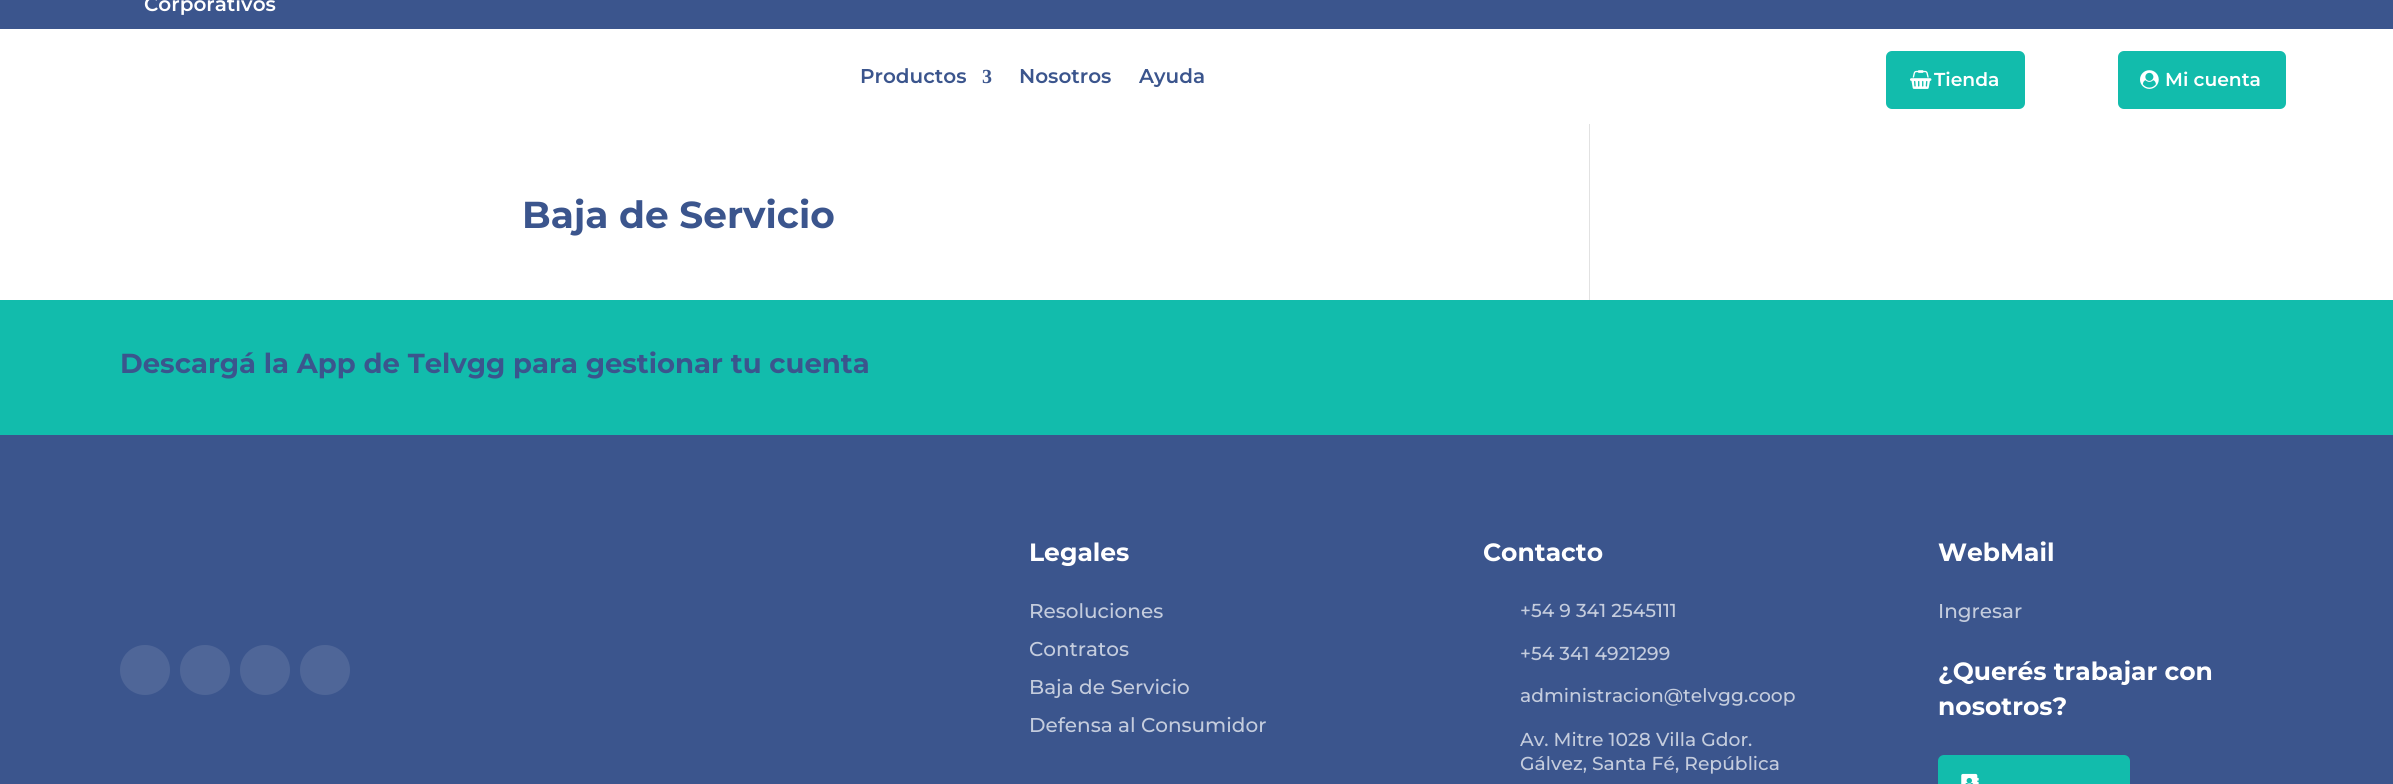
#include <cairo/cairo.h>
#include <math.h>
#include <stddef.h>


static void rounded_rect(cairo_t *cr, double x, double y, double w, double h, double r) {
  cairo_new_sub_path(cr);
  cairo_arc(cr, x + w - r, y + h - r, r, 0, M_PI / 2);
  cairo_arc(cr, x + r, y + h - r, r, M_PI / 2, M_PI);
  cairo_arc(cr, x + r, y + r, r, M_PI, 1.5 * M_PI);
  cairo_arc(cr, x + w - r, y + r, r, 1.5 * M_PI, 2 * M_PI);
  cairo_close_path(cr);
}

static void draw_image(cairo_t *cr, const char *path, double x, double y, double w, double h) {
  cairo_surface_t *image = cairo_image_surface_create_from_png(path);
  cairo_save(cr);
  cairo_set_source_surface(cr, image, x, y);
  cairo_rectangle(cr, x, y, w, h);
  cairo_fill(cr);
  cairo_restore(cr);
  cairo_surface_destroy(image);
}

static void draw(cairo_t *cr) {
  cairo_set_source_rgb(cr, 1, 1, 1);
  cairo_paint(cr);
  cairo_set_source_rgb(cr, 59 / 255.0, 85 / 255.0, 141 / 255.0);
  cairo_rectangle(cr, 0, 0, 2393, 29);
  cairo_fill(cr);
  cairo_set_source_rgb(cr, 18 / 255.0, 188 / 255.0, 172 / 255.0);
  rounded_rect(cr, 1886, 51, 139, 58, 6);
  cairo_fill(cr);
  draw_image(cr, "images/1.png", 1910, 70, 22, 19);
  rounded_rect(cr, 2118, 51, 168, 58, 6);
  cairo_fill(cr);
  draw_image(cr, "images/2.png", 2140, 70, 19, 19);
  cairo_set_source_rgb(cr, 226 / 255.0, 226 / 255.0, 226 / 255.0);
  cairo_rectangle(cr, 1589, 124, 1, 176);
  cairo_fill(cr);
  cairo_set_source_rgb(cr, 18 / 255.0, 188 / 255.0, 172 / 255.0);
  cairo_rectangle(cr, 0, 300, 2393, 135);
  cairo_fill(cr);
  cairo_set_source_rgb(cr, 59 / 255.0, 85 / 255.0, 141 / 255.0);
  cairo_rectangle(cr, 0, 435, 2393, 349);
  cairo_fill(cr);
  cairo_set_source_rgb(cr, 79 / 255.0, 102 / 255.0, 152 / 255.0);
  cairo_arc(cr, 145, 670, 25, 0, 2 * M_PI);
  cairo_fill(cr);
  cairo_arc(cr, 205, 670, 25, 0, 2 * M_PI);
  cairo_fill(cr);
  cairo_arc(cr, 265, 670, 25, 0, 2 * M_PI);
  cairo_fill(cr);
  cairo_arc(cr, 325, 670, 25, 0, 2 * M_PI);
  cairo_fill(cr);
  cairo_set_source_rgb(cr, 18 / 255.0, 188 / 255.0, 172 / 255.0);
  rounded_rect(cr, 1938, 755, 192, 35, 6);
  cairo_fill(cr);
  draw_image(cr, "images/3.png", 1961, 773, 18, 11);
  cairo_select_font_face(cr, "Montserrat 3 Thin", CAIRO_FONT_SLANT_NORMAL, CAIRO_FONT_WEIGHT_NORMAL);
  cairo_set_font_size(cr, 20);
  cairo_set_source_rgb(cr, 1, 1, 1);
  cairo_move_to(cr, 144, 11);
  cairo_show_text(cr, "Corporativos");
  cairo_set_source_rgb(cr, 59 / 255.0, 85 / 255.0, 141 / 255.0);
  cairo_move_to(cr, 860, 83);
  cairo_show_text(cr, "Productos");
  cairo_select_font_face(cr, "Liberation Serif", CAIRO_FONT_SLANT_NORMAL, CAIRO_FONT_WEIGHT_BOLD);
  cairo_move_to(cr, 982, 83);
  cairo_show_text(cr, "3");
  cairo_select_font_face(cr, "Montserrat 3 Thin", CAIRO_FONT_SLANT_NORMAL, CAIRO_FONT_WEIGHT_NORMAL);
  cairo_move_to(cr, 1019, 83);
  cairo_show_text(cr, "Nosotros");
  cairo_move_to(cr, 1139, 83);
  cairo_show_text(cr, "Ayuda");
  cairo_set_font_size(cr, 18.75);
  cairo_set_source_rgb(cr, 1, 1, 1);
  cairo_move_to(cr, 1934, 86);
  cairo_show_text(cr, "Tienda");
  cairo_move_to(cr, 2165, 86);
  cairo_show_text(cr, "Mi cuenta");
  cairo_select_font_face(cr, "Montserrat Thin", CAIRO_FONT_SLANT_NORMAL, CAIRO_FONT_WEIGHT_NORMAL);
  cairo_set_font_size(cr, 37.5);
  cairo_set_source_rgb(cr, 59 / 255.0, 85 / 255.0, 141 / 255.0);
  cairo_move_to(cr, 522, 228);
  cairo_show_text(cr, "Baja de Servicio");
  cairo_set_font_size(cr, 27.5);
  cairo_move_to(cr, 120, 373);
  cairo_show_text(cr, "Descargá la App de Telvgg para gestionar tu cuenta");
  cairo_set_font_size(cr, 25);
  cairo_set_source_rgb(cr, 1, 1, 1);
  cairo_move_to(cr, 1029, 561);
  cairo_show_text(cr, "Legales");
  cairo_select_font_face(cr, "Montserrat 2 Thin", CAIRO_FONT_SLANT_NORMAL, CAIRO_FONT_WEIGHT_NORMAL);
  cairo_set_font_size(cr, 20);
  cairo_set_source_rgb(cr, 196 / 255.0, 204 / 255.0, 221 / 255.0);
  cairo_move_to(cr, 1029, 618);
  cairo_show_text(cr, "Resoluciones");
  cairo_move_to(cr, 1029, 656);
  cairo_show_text(cr, "Contratos");
  cairo_move_to(cr, 1029, 694);
  cairo_show_text(cr, "Baja de Servicio");
  cairo_move_to(cr, 1029, 732);
  cairo_show_text(cr, "Defensa al Consumidor");
  cairo_select_font_face(cr, "Montserrat Thin", CAIRO_FONT_SLANT_NORMAL, CAIRO_FONT_WEIGHT_NORMAL);
  cairo_set_font_size(cr, 25);
  cairo_set_source_rgb(cr, 1, 1, 1);
  cairo_move_to(cr, 1483, 561);
  cairo_show_text(cr, "Contacto");
  cairo_select_font_face(cr, "Montserrat 2 Thin", CAIRO_FONT_SLANT_NORMAL, CAIRO_FONT_WEIGHT_NORMAL);
  cairo_set_font_size(cr, 18.75);
  cairo_set_source_rgb(cr, 196 / 255.0, 204 / 255.0, 221 / 255.0);
  cairo_move_to(cr, 1520, 617);
  cairo_show_text(cr, "+54 9 341 2545111");
  cairo_move_to(cr, 1520, 660);
  cairo_show_text(cr, "+54 341 4921299");
  cairo_move_to(cr, 1520, 702);
  cairo_show_text(cr, "administracion@telvgg.coop");
  cairo_move_to(cr, 1520, 746);
  cairo_show_text(cr, "Av. Mitre 1028 Villa Gdor.");
  cairo_move_to(cr, 1520, 770);
  cairo_show_text(cr, "Gálvez, Santa Fé, República");
  cairo_select_font_face(cr, "Montserrat Thin", CAIRO_FONT_SLANT_NORMAL, CAIRO_FONT_WEIGHT_NORMAL);
  cairo_set_font_size(cr, 25);
  cairo_set_source_rgb(cr, 1, 1, 1);
  cairo_move_to(cr, 1938, 561);
  cairo_show_text(cr, "WebMail");
  cairo_select_font_face(cr, "Montserrat 2 Thin", CAIRO_FONT_SLANT_NORMAL, CAIRO_FONT_WEIGHT_NORMAL);
  cairo_set_font_size(cr, 20);
  cairo_set_source_rgb(cr, 196 / 255.0, 204 / 255.0, 221 / 255.0);
  cairo_move_to(cr, 1938, 618);
  cairo_show_text(cr, "Ingresar");
  cairo_select_font_face(cr, "Montserrat Thin", CAIRO_FONT_SLANT_NORMAL, CAIRO_FONT_WEIGHT_NORMAL);
  cairo_set_font_size(cr, 25);
  cairo_set_source_rgb(cr, 1, 1, 1);
  cairo_move_to(cr, 1938, 680);
  cairo_show_text(cr, "¿Querés trabajar con");
  cairo_move_to(cr, 1938, 715);
  cairo_show_text(cr, "nosotros?");
}

int main(void) {
  cairo_surface_t *surface = cairo_image_surface_create(CAIRO_FORMAT_RGB24, 2393, 784);
  cairo_t *cr = cairo_create(surface);
  cairo_font_options_t *options = cairo_font_options_create();
  cairo_font_options_set_hint_metrics(options, CAIRO_HINT_METRICS_OFF);
  cairo_font_options_set_hint_style(options, CAIRO_HINT_STYLE_NONE);
  cairo_set_font_options(cr, options);
  cairo_set_miter_limit(cr, 4);
  draw(cr);
  cairo_surface_write_to_png(surface, "out.png");
  cairo_font_options_destroy(options);
  cairo_destroy(cr);
  cairo_surface_destroy(surface);
  return 0;
}
